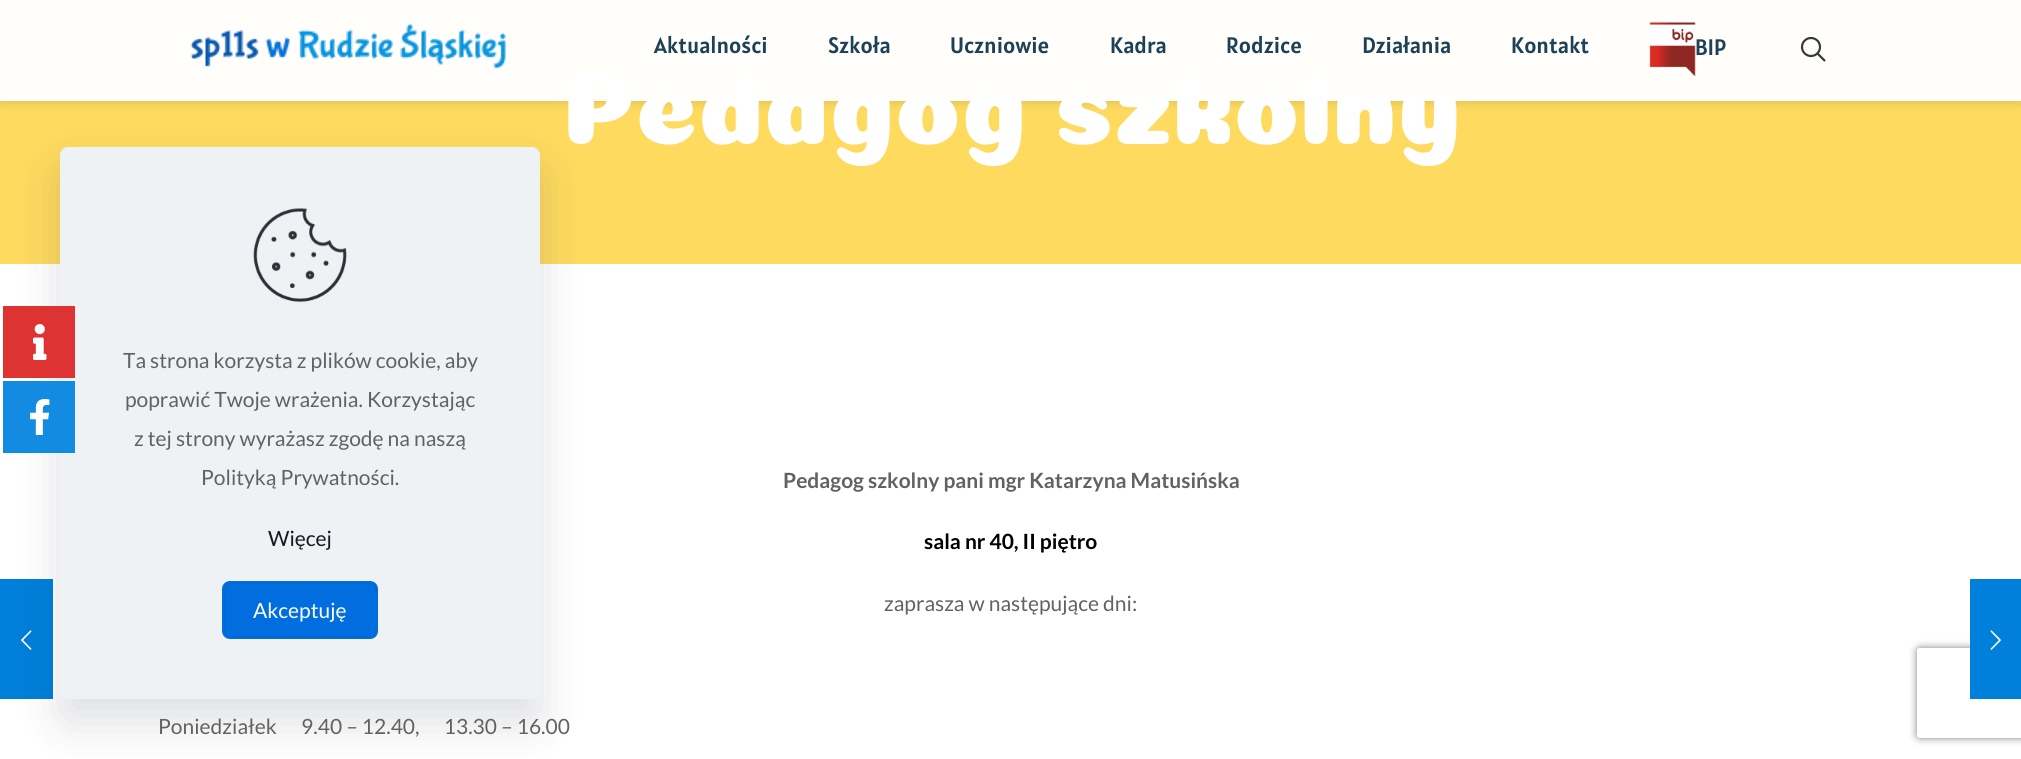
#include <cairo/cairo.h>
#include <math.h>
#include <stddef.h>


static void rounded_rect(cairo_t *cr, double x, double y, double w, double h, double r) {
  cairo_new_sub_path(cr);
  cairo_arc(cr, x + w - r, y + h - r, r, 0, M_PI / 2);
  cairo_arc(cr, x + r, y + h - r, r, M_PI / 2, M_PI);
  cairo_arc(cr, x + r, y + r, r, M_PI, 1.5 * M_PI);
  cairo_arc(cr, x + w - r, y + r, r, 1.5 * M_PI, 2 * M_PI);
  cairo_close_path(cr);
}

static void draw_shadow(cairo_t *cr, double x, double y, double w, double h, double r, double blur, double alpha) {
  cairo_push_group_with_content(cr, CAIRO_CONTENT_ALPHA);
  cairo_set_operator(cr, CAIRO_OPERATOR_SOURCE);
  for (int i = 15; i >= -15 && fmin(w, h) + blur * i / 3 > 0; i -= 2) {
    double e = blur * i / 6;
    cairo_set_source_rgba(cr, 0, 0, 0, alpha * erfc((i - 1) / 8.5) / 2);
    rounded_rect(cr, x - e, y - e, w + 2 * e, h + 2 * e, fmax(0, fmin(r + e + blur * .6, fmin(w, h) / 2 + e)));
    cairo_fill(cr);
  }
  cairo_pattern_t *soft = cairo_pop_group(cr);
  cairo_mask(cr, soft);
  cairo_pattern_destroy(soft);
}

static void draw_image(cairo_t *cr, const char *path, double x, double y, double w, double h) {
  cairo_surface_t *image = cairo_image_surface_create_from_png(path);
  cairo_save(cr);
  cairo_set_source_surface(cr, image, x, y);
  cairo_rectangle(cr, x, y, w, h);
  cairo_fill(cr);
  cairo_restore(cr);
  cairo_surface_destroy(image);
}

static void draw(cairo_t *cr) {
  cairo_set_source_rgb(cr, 1, 1, 1);
  cairo_paint(cr);
  cairo_set_source_rgb(cr, 254 / 255.0, 218 / 255.0, 95 / 255.0);
  cairo_rectangle(cr, 0, 0, 2021, 264);
  cairo_fill(cr);
  cairo_set_source_rgb(cr, 0, 128 / 255.0, 218 / 255.0);
  cairo_rectangle(cr, 0, 579, 53, 120);
  cairo_fill(cr);
  draw_image(cr, "images/6.png", 21, 630, 11, 20);
  cairo_set_source_rgb(cr, 1 / 255.0, 7 / 255.0, 39 / 255.0);
  draw_shadow(cr, 60, 170, 480, 552, 8, 22.5, 0.13);
  cairo_set_source_rgb(cr, 238 / 255.0, 242 / 255.0, 245 / 255.0);
  rounded_rect(cr, 60, 147, 480, 552, 8);
  cairo_fill(cr);
  cairo_set_source_rgb(cr, 221 / 255.0, 51 / 255.0, 51 / 255.0);
  cairo_rectangle(cr, 3, 306, 72, 72);
  cairo_fill(cr);
  draw_image(cr, "images/1.png", 33, 324, 14, 36);
  cairo_set_source_rgb(cr, 18 / 255.0, 139 / 255.0, 224 / 255.0);
  cairo_rectangle(cr, 3, 381, 72, 72);
  cairo_fill(cr);
  draw_image(cr, "images/2.png", 30, 399, 20, 36);
  cairo_save(cr);
  cairo_set_fill_rule(cr, CAIRO_FILL_RULE_EVEN_ODD);
  cairo_new_path(cr);
  cairo_move_to(cr, 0, 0);
  cairo_line_to(cr, 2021, 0);
  cairo_line_to(cr, 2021, 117);
  cairo_line_to(cr, 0, 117);
  cairo_close_path(cr);
  cairo_move_to(cr, 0, 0);
  cairo_line_to(cr, 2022, 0);
  cairo_line_to(cr, 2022, 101);
  cairo_line_to(cr, 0, 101);
  cairo_close_path(cr);
  cairo_clip(cr);
  cairo_set_source_rgb(cr, 0, 0, 0);
  draw_shadow(cr, 0, 3, 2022, 101, 0, 4, 0.1);
  cairo_restore(cr);
  draw_image(cr, "images/5.png", 253, 208, 94, 94);
  cairo_set_source_rgb(cr, 0, 110 / 255.0, 223 / 255.0);
  rounded_rect(cr, 222, 581, 156, 58, 8);
  cairo_fill(cr);
  rounded_rect(cr, 225, 583, 151, 54, 5);
  cairo_set_source_rgb(cr, 0, 107 / 255.0, 216 / 255.0);
  cairo_stroke(cr);
  cairo_save(cr);
  cairo_set_fill_rule(cr, CAIRO_FILL_RULE_EVEN_ODD);
  cairo_new_path(cr);
  cairo_move_to(cr, 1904, 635);
  cairo_line_to(cr, 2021, 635);
  cairo_line_to(cr, 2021, 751);
  cairo_line_to(cr, 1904, 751);
  cairo_close_path(cr);
  cairo_move_to(cr, 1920, 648);
  cairo_line_to(cr, 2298, 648);
  cairo_curve_to(cr, 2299.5, 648, 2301, 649.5, 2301, 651);
  cairo_line_to(cr, 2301, 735);
  cairo_curve_to(cr, 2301, 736.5, 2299.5, 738, 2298, 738);
  cairo_line_to(cr, 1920, 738);
  cairo_curve_to(cr, 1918.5, 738, 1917, 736.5, 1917, 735);
  cairo_line_to(cr, 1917, 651);
  cairo_curve_to(cr, 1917, 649.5, 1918.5, 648, 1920, 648);
  cairo_close_path(cr);
  cairo_clip(cr);
  cairo_set_source_rgb(cr, 128 / 255.0, 128 / 255.0, 128 / 255.0);
  draw_shadow(cr, 1917, 648, 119, 90, 3, 4, 1);
  cairo_restore(cr);
  cairo_set_source_rgb(cr, 0, 128 / 255.0, 218 / 255.0);
  cairo_rectangle(cr, 1970, 579, 51, 120);
  cairo_fill(cr);
  draw_image(cr, "images/7.png", 1990, 630, 11, 20);
  cairo_select_font_face(cr, "Coiny", CAIRO_FONT_SLANT_NORMAL, CAIRO_FONT_WEIGHT_NORMAL);
  cairo_set_font_size(cr, 105);
  cairo_set_source_rgb(cr, 1, 1, 1);
  cairo_move_to(cr, 562, 144);
  cairo_show_text(cr, "Pedagog szkolny");
  cairo_set_source_rgba(cr, 1, 1, 1, 0.97);
  cairo_rectangle(cr, 0, 0, 2021, 101);
  cairo_fill(cr);
  cairo_select_font_face(cr, "Alatsi", CAIRO_FONT_SLANT_NORMAL, CAIRO_FONT_WEIGHT_NORMAL);
  cairo_set_font_size(cr, 22.5);
  cairo_set_source_rgb(cr, 29 / 255.0, 65 / 255.0, 85 / 255.0);
  cairo_move_to(cr, 1695, 55);
  cairo_show_text(cr, "BIP");
  draw_image(cr, "images/4.png", 1649, 22, 47, 55);
  cairo_move_to(cr, 1511, 53);
  cairo_show_text(cr, "Kontakt");
  cairo_move_to(cr, 1362, 53);
  cairo_show_text(cr, "Działania");
  cairo_move_to(cr, 1226, 53);
  cairo_show_text(cr, "Rodzice");
  cairo_move_to(cr, 1110, 53);
  cairo_show_text(cr, "Kadra");
  cairo_move_to(cr, 950, 53);
  cairo_show_text(cr, "Uczniowie");
  cairo_move_to(cr, 828, 53);
  cairo_show_text(cr, "Szkoła");
  cairo_move_to(cr, 654, 53);
  cairo_show_text(cr, "Aktualności");
  cairo_new_path(cr);
  cairo_arc(cr, 1811, 47, 9, 0, 2 * M_PI);
  cairo_set_source_rgb(cr, 57 / 255.0, 56 / 255.0, 52 / 255.0);
  cairo_set_line_width(cr, 2.2);
  cairo_stroke(cr);
  cairo_new_path(cr);
  cairo_move_to(cr, 1817.5, 53.5);
  cairo_line_to(cr, 1825, 61);
  cairo_stroke(cr);
  draw_image(cr, "images/3.png", 190, 23, 316, 47);
  cairo_select_font_face(cr, "Lato", CAIRO_FONT_SLANT_NORMAL, CAIRO_FONT_WEIGHT_BOLD);
  cairo_set_font_size(cr, 21);
  cairo_set_source_rgb(cr, 98 / 255.0, 98 / 255.0, 98 / 255.0);
  cairo_move_to(cr, 783, 488);
  cairo_show_text(cr, "Pedagog szkolny pani mgr Katarzyna Matusińska");
  cairo_set_source_rgb(cr, 0, 0, 0);
  cairo_move_to(cr, 924, 549);
  cairo_show_text(cr, "sala nr 40, II piętro");
  cairo_select_font_face(cr, "Lato", CAIRO_FONT_SLANT_NORMAL, CAIRO_FONT_WEIGHT_NORMAL);
  cairo_set_source_rgb(cr, 98 / 255.0, 98 / 255.0, 98 / 255.0);
  cairo_move_to(cr, 884, 611);
  cairo_show_text(cr, "zaprasza w następujące dni:");
  cairo_move_to(cr, 158, 734);
  cairo_show_text(cr, "Poniedziałek      9.40 – 12.40,      13.30 – 16.00");
  cairo_move_to(cr, 123, 368);
  cairo_show_text(cr, "Ta strona korzysta z plików cookie, aby");
  cairo_move_to(cr, 125, 407);
  cairo_show_text(cr, "poprawić Twoje wrażenia. Korzystając");
  cairo_move_to(cr, 134, 446);
  cairo_show_text(cr, "z tej strony wyrażasz zgodę na naszą");
  cairo_move_to(cr, 201, 485);
  cairo_show_text(cr, "Polityką Prywatności.");
  cairo_set_source_rgb(cr, 22 / 255.0, 25 / 255.0, 34 / 255.0);
  cairo_move_to(cr, 268, 546);
  cairo_show_text(cr, "Więcej");
  cairo_set_source_rgb(cr, 1, 1, 1);
  cairo_move_to(cr, 253, 618);
  cairo_show_text(cr, "Akceptuję");
}

int main(void) {
  cairo_surface_t *surface = cairo_image_surface_create(CAIRO_FORMAT_RGB24, 2021, 759);
  cairo_t *cr = cairo_create(surface);
  cairo_font_options_t *options = cairo_font_options_create();
  cairo_font_options_set_hint_metrics(options, CAIRO_HINT_METRICS_OFF);
  cairo_font_options_set_hint_style(options, CAIRO_HINT_STYLE_NONE);
  cairo_set_font_options(cr, options);
  cairo_set_miter_limit(cr, 4);
  draw(cr);
  cairo_surface_write_to_png(surface, "out.png");
  cairo_font_options_destroy(options);
  cairo_destroy(cr);
  cairo_surface_destroy(surface);
  return 0;
}
